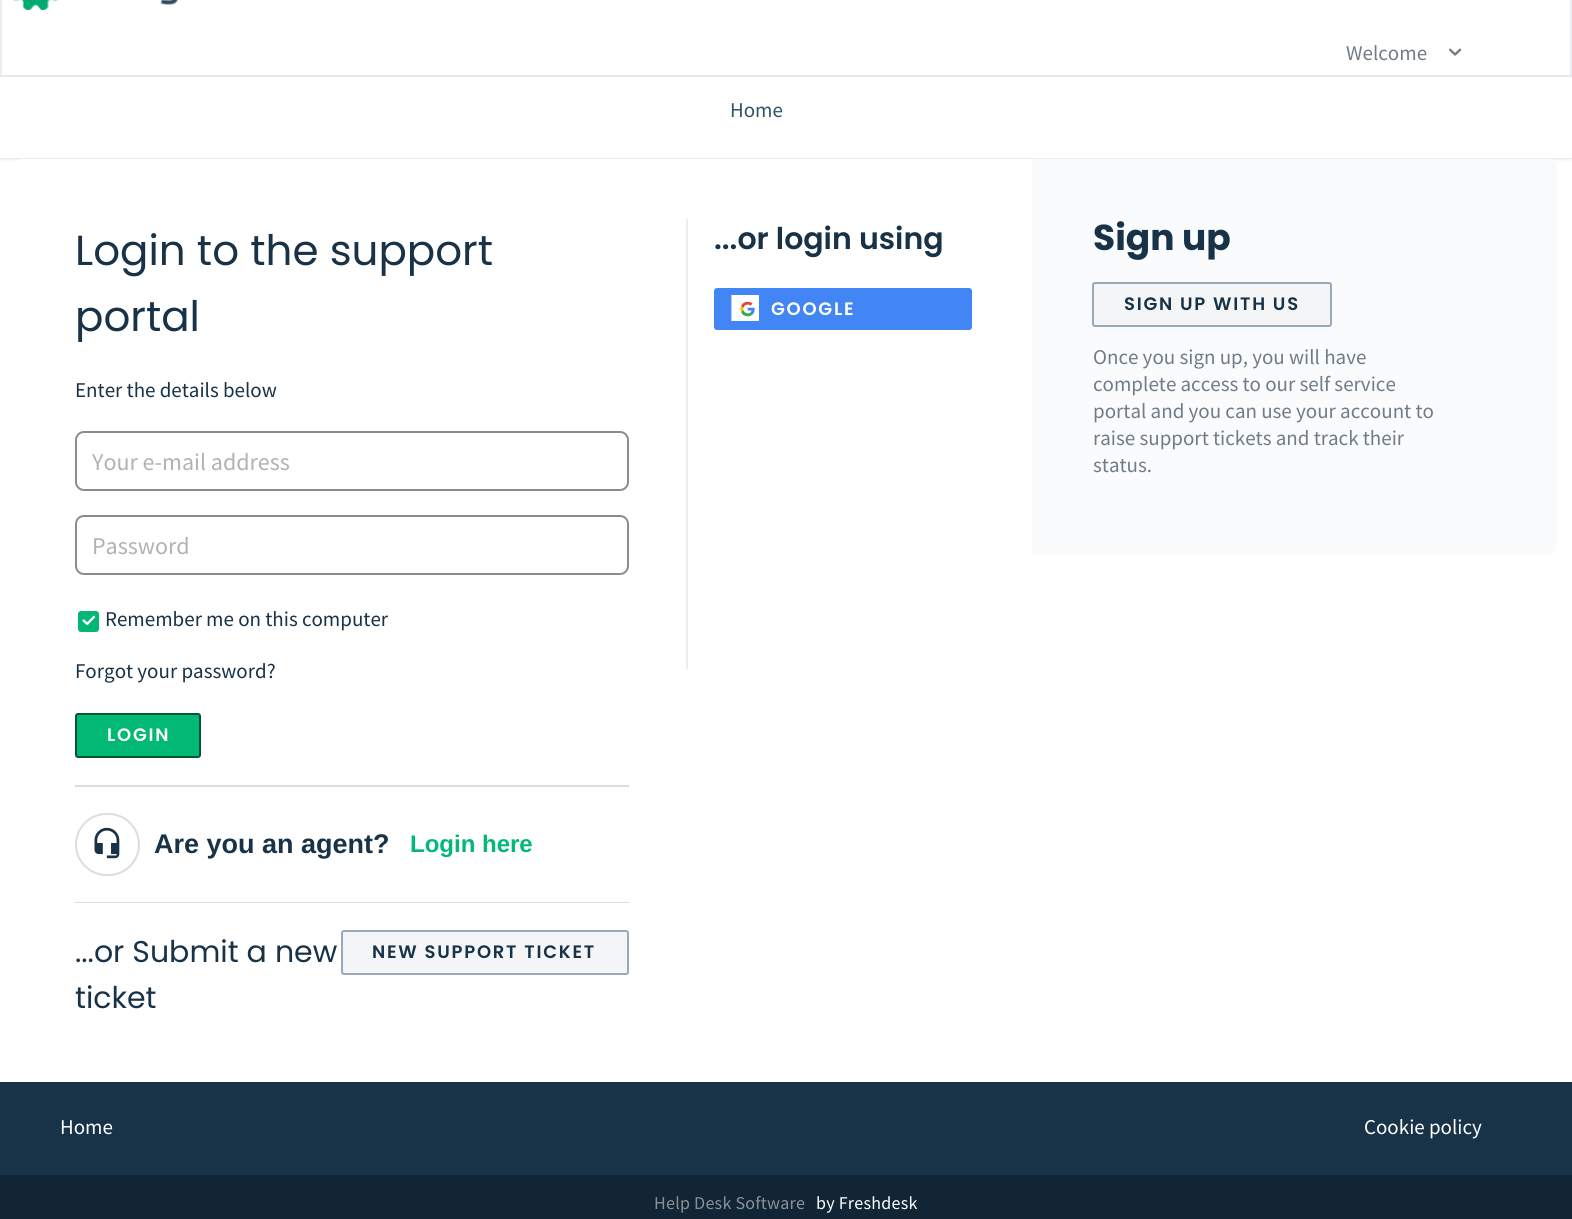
#include <cairo/cairo.h>
#include <math.h>
#include <stddef.h>


static void draw_spaced(cairo_t *cr, double x, double y, const char *s, double letter, double word) {
  cairo_move_to(cr, x, y);
  while (*s) {
    char ch[5] = {0};
    int n = 0;
    do ch[n++] = *s++; while ((*s & 0xC0) == 0x80);
    cairo_show_text(cr, ch);
    cairo_rel_move_to(cr, letter + word * (*ch == ' '), 0);
  }
}

static void rounded_rect(cairo_t *cr, double x, double y, double w, double h, double r) {
  cairo_new_sub_path(cr);
  cairo_arc(cr, x + w - r, y + h - r, r, 0, M_PI / 2);
  cairo_arc(cr, x + r, y + h - r, r, M_PI / 2, M_PI);
  cairo_arc(cr, x + r, y + r, r, M_PI, 1.5 * M_PI);
  cairo_arc(cr, x + w - r, y + r, r, 1.5 * M_PI, 2 * M_PI);
  cairo_close_path(cr);
}

static void draw_shadow(cairo_t *cr, double x, double y, double w, double h, double r, double blur, double alpha) {
  cairo_push_group_with_content(cr, CAIRO_CONTENT_ALPHA);
  cairo_set_operator(cr, CAIRO_OPERATOR_SOURCE);
  for (int i = 15; i >= -15 && fmin(w, h) + blur * i / 3 > 0; i -= 2) {
    double e = blur * i / 6;
    cairo_set_source_rgba(cr, 0, 0, 0, alpha * erfc((i - 1) / 8.5) / 2);
    rounded_rect(cr, x - e, y - e, w + 2 * e, h + 2 * e, fmax(0, fmin(r + e + blur * .6, fmin(w, h) / 2 + e)));
    cairo_fill(cr);
  }
  cairo_pattern_t *soft = cairo_pop_group(cr);
  cairo_mask(cr, soft);
  cairo_pattern_destroy(soft);
}

static void draw_image(cairo_t *cr, const char *path, double x, double y, double w, double h) {
  cairo_surface_t *image = cairo_image_surface_create_from_png(path);
  cairo_save(cr);
  cairo_set_source_surface(cr, image, x, y);
  cairo_rectangle(cr, x, y, w, h);
  cairo_fill(cr);
  cairo_restore(cr);
  cairo_surface_destroy(image);
}

static void draw(cairo_t *cr) {
  cairo_set_source_rgb(cr, 1, 1, 1);
  cairo_paint(cr);
  cairo_rectangle(cr, 1, -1, 1570, 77);
  cairo_set_source_rgb(cr, 235 / 255.0, 238 / 255.0, 240 / 255.0);
  cairo_stroke(cr);
  draw_image(cr, "images/1.png", 13, 0, 166, 10);
  draw_image(cr, "images/2.png", 1449, 48, 13, 8);
  cairo_set_source_rgb(cr, 63 / 255.0, 63 / 255.0, 68 / 255.0);
  draw_shadow(cr, 0, 78, 1572, 81, 0, 1.5, 0.15);
  cairo_set_source_rgb(cr, 1, 1, 1);
  cairo_rectangle(cr, 0, 77, 1572, 81);
  cairo_fill(cr);
  rounded_rect(cr, 15, 159, 1542, 923, 9);
  cairo_fill(cr);
  rounded_rect(cr, 76, 432, 552, 58, 8);
  cairo_set_source_rgb(cr, 140 / 255.0, 140 / 255.0, 140 / 255.0);
  cairo_stroke(cr);
  rounded_rect(cr, 76, 516, 552, 58, 8);
  cairo_stroke(cr);
  cairo_set_source_rgb(cr, 2 / 255.0, 184 / 255.0, 117 / 255.0);
  rounded_rect(cr, 79, 612, 19, 19, 2);
  cairo_fill_preserve(cr);
  cairo_stroke(cr);
  draw_image(cr, "images/3.png", 82, 615, 14, 11);
  rounded_rect(cr, 76, 714, 124, 43, 2);
  cairo_fill_preserve(cr);
  cairo_set_source_rgb(cr, 1 / 255.0, 83 / 255.0, 53 / 255.0);
  cairo_stroke(cr);
  cairo_set_source_rgb(cr, 221 / 255.0, 221 / 255.0, 221 / 255.0);
  cairo_rectangle(cr, 75, 785, 554, 2);
  cairo_fill(cr);
  rounded_rect(cr, 76, 814, 63, 61, 30.5);
  cairo_stroke(cr);
  draw_image(cr, "images/4.png", 94, 827, 26, 32);
  cairo_set_source_rgb(cr, 220 / 255.0, 220 / 255.0, 220 / 255.0);
  cairo_rectangle(cr, 75, 902, 554, 1);
  cairo_fill(cr);
  cairo_set_source_rgb(cr, 243 / 255.0, 245 / 255.0, 247 / 255.0);
  rounded_rect(cr, 342, 931, 286, 43, 2);
  cairo_fill_preserve(cr);
  cairo_set_source_rgb(cr, 151 / 255.0, 169 / 255.0, 186 / 255.0);
  cairo_stroke(cr);
  cairo_set_source_rgb(cr, 235 / 255.0, 238 / 255.0, 240 / 255.0);
  cairo_rectangle(cr, 686, 219, 2, 450);
  cairo_fill(cr);
  cairo_set_source_rgb(cr, 66 / 255.0, 133 / 255.0, 244 / 255.0);
  rounded_rect(cr, 714, 288, 258, 42, 3);
  cairo_fill(cr);
  draw_image(cr, "images/5.png", 731, 295, 28, 26);
  cairo_set_source_rgb(cr, 250 / 255.0, 251 / 255.0, 252 / 255.0);
  cairo_new_path(cr);
  cairo_move_to(cr, 1032, 159);
  cairo_line_to(cr, 1548, 159);
  cairo_curve_to(cr, 1553, 159, 1557, 163, 1557, 168);
  cairo_line_to(cr, 1557, 546);
  cairo_curve_to(cr, 1557, 551, 1553, 555, 1548, 555);
  cairo_line_to(cr, 1032, 555);
  cairo_close_path(cr);
  cairo_fill(cr);
  cairo_set_source_rgb(cr, 243 / 255.0, 245 / 255.0, 247 / 255.0);
  rounded_rect(cr, 1093, 283, 238, 43, 2);
  cairo_fill_preserve(cr);
  cairo_set_source_rgb(cr, 151 / 255.0, 169 / 255.0, 186 / 255.0);
  cairo_stroke(cr);
  cairo_set_source_rgb(cr, 24 / 255.0, 50 / 255.0, 71 / 255.0);
  cairo_rectangle(cr, 0, 1082, 1572, 93);
  cairo_fill(cr);
  cairo_set_source_rgb(cr, 18 / 255.0, 37 / 255.0, 52 / 255.0);
  cairo_rectangle(cr, 0, 1175, 1572, 44);
  cairo_fill(cr);
  cairo_select_font_face(cr, "Source Sans Pro", CAIRO_FONT_SLANT_NORMAL, CAIRO_FONT_WEIGHT_NORMAL);
  cairo_set_font_size(cr, 21);
  cairo_set_source_rgb(cr, 111 / 255.0, 124 / 255.0, 135 / 255.0);
  cairo_move_to(cr, 1346, 60);
  cairo_show_text(cr, "Welcome");
  cairo_set_source_rgb(cr, 45 / 255.0, 84 / 255.0, 103 / 255.0);
  cairo_move_to(cr, 730, 117);
  cairo_show_text(cr, "Home");
  cairo_select_font_face(cr, "Poppins", CAIRO_FONT_SLANT_NORMAL, CAIRO_FONT_WEIGHT_NORMAL);
  cairo_set_font_size(cr, 42);
  cairo_set_source_rgb(cr, 24 / 255.0, 50 / 255.0, 71 / 255.0);
  cairo_move_to(cr, 75, 265);
  cairo_show_text(cr, "Login to the support");
  cairo_move_to(cr, 75, 331);
  cairo_show_text(cr, "portal");
  cairo_select_font_face(cr, "Source Sans Pro", CAIRO_FONT_SLANT_NORMAL, CAIRO_FONT_WEIGHT_NORMAL);
  cairo_set_font_size(cr, 21);
  cairo_move_to(cr, 75, 397);
  cairo_show_text(cr, "Enter the details below");
  cairo_set_font_size(cr, 24);
  cairo_set_source_rgb(cr, 178 / 255.0, 178 / 255.0, 178 / 255.0);
  cairo_move_to(cr, 92, 470);
  cairo_show_text(cr, "Your e-mail address");
  cairo_move_to(cr, 92, 554);
  cairo_show_text(cr, "Password");
  cairo_set_font_size(cr, 21);
  cairo_set_source_rgb(cr, 24 / 255.0, 50 / 255.0, 71 / 255.0);
  cairo_move_to(cr, 105, 626);
  cairo_show_text(cr, "Remember me on this computer");
  cairo_move_to(cr, 75, 678);
  cairo_show_text(cr, "Forgot your password?");
  cairo_select_font_face(cr, "Poppins SemiBold", CAIRO_FONT_SLANT_NORMAL, CAIRO_FONT_WEIGHT_NORMAL);
  cairo_set_font_size(cr, 18);
  cairo_set_source_rgb(cr, 1, 1, 1);
  draw_spaced(cr, 107, 741, "LOGIN", 1.75, 0);
  cairo_select_font_face(cr, "Liberation Sans", CAIRO_FONT_SLANT_NORMAL, CAIRO_FONT_WEIGHT_BOLD);
  cairo_set_font_size(cr, 27);
  cairo_set_source_rgb(cr, 24 / 255.0, 50 / 255.0, 71 / 255.0);
  cairo_move_to(cr, 154, 853);
  cairo_show_text(cr, "Are you an agent?");
  cairo_set_font_size(cr, 24);
  cairo_set_source_rgb(cr, 2 / 255.0, 184 / 255.0, 117 / 255.0);
  cairo_move_to(cr, 410, 852);
  cairo_show_text(cr, "Login here");
  cairo_select_font_face(cr, "Poppins", CAIRO_FONT_SLANT_NORMAL, CAIRO_FONT_WEIGHT_NORMAL);
  cairo_set_font_size(cr, 30);
  cairo_set_source_rgb(cr, 24 / 255.0, 50 / 255.0, 71 / 255.0);
  cairo_move_to(cr, 75, 962);
  cairo_show_text(cr, "...or Submit a new");
  cairo_move_to(cr, 75, 1008);
  cairo_show_text(cr, "ticket");
  cairo_select_font_face(cr, "Poppins SemiBold", CAIRO_FONT_SLANT_NORMAL, CAIRO_FONT_WEIGHT_NORMAL);
  cairo_set_font_size(cr, 18);
  draw_spaced(cr, 372, 958, "NEW SUPPORT TICKET", 1.75, 0);
  cairo_set_font_size(cr, 30);
  cairo_move_to(cr, 714, 249);
  cairo_show_text(cr, "...or login using");
  cairo_set_font_size(cr, 18);
  cairo_set_source_rgb(cr, 1, 1, 1);
  draw_spaced(cr, 771, 315, "GOOGLE", 1.75, 0);
  cairo_select_font_face(cr, "Poppins", CAIRO_FONT_SLANT_NORMAL, CAIRO_FONT_WEIGHT_BOLD);
  cairo_set_font_size(cr, 36);
  cairo_set_source_rgb(cr, 24 / 255.0, 50 / 255.0, 71 / 255.0);
  cairo_move_to(cr, 1093, 250);
  cairo_show_text(cr, "Sign up");
  cairo_select_font_face(cr, "Poppins SemiBold", CAIRO_FONT_SLANT_NORMAL, CAIRO_FONT_WEIGHT_NORMAL);
  cairo_set_font_size(cr, 18);
  draw_spaced(cr, 1124, 310, "SIGN UP WITH US", 1.75, 0);
  cairo_select_font_face(cr, "Source Sans Pro", CAIRO_FONT_SLANT_NORMAL, CAIRO_FONT_WEIGHT_NORMAL);
  cairo_set_font_size(cr, 21);
  cairo_set_source_rgb(cr, 111 / 255.0, 124 / 255.0, 135 / 255.0);
  cairo_move_to(cr, 1093, 364);
  cairo_show_text(cr, "Once you sign up, you will have");
  cairo_move_to(cr, 1093, 391);
  cairo_show_text(cr, "complete access to our self service");
  cairo_move_to(cr, 1093, 418);
  cairo_show_text(cr, "portal and you can use your account to");
  cairo_move_to(cr, 1093, 445);
  cairo_show_text(cr, "raise support tickets and track their");
  cairo_move_to(cr, 1093, 472);
  cairo_show_text(cr, "status.");
  cairo_set_source_rgb(cr, 1, 1, 1);
  cairo_move_to(cr, 60, 1134);
  cairo_show_text(cr, "Home");
  cairo_move_to(cr, 1364, 1134);
  cairo_show_text(cr, "Cookie policy");
  cairo_set_font_size(cr, 18);
  cairo_set_source_rgb(cr, 137 / 255.0, 146 / 255.0, 154 / 255.0);
  draw_spaced(cr, 654, 1209, "Help Desk Software", 0.25, 0);
  cairo_set_source_rgb(cr, 1, 1, 1);
  draw_spaced(cr, 816, 1209, "by Freshdesk", 0.25, 0);
}

int main(void) {
  cairo_surface_t *surface = cairo_image_surface_create(CAIRO_FORMAT_RGB24, 1572, 1219);
  cairo_t *cr = cairo_create(surface);
  cairo_font_options_t *options = cairo_font_options_create();
  cairo_font_options_set_hint_metrics(options, CAIRO_HINT_METRICS_OFF);
  cairo_font_options_set_hint_style(options, CAIRO_HINT_STYLE_NONE);
  cairo_set_font_options(cr, options);
  cairo_set_miter_limit(cr, 4);
  draw(cr);
  cairo_surface_write_to_png(surface, "out.png");
  cairo_font_options_destroy(options);
  cairo_destroy(cr);
  cairo_surface_destroy(surface);
  return 0;
}
